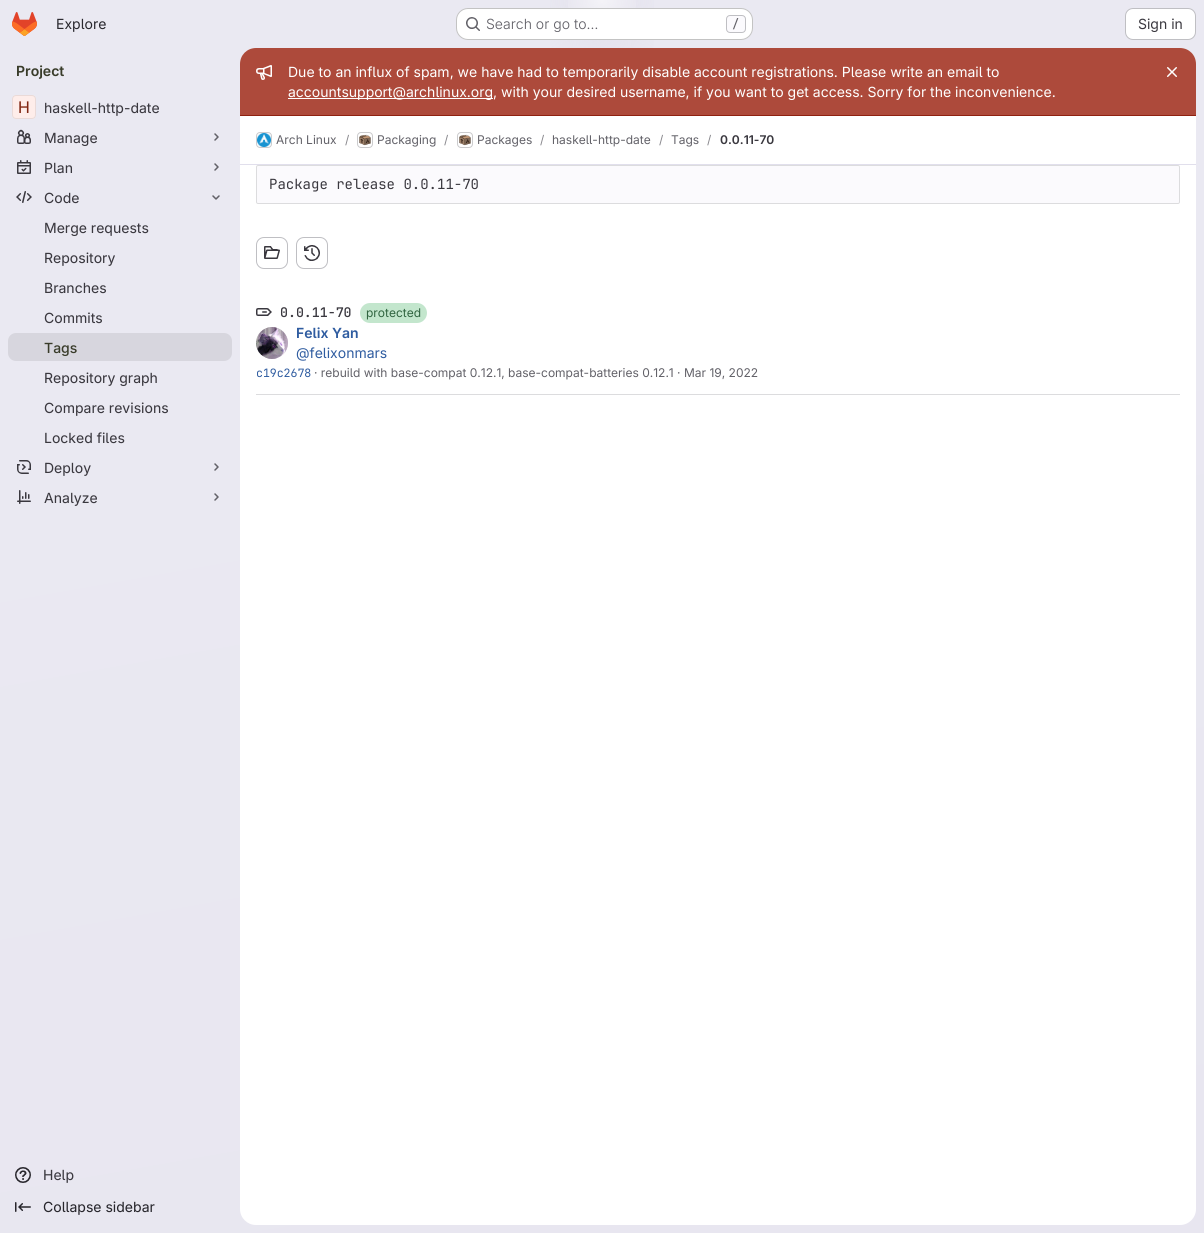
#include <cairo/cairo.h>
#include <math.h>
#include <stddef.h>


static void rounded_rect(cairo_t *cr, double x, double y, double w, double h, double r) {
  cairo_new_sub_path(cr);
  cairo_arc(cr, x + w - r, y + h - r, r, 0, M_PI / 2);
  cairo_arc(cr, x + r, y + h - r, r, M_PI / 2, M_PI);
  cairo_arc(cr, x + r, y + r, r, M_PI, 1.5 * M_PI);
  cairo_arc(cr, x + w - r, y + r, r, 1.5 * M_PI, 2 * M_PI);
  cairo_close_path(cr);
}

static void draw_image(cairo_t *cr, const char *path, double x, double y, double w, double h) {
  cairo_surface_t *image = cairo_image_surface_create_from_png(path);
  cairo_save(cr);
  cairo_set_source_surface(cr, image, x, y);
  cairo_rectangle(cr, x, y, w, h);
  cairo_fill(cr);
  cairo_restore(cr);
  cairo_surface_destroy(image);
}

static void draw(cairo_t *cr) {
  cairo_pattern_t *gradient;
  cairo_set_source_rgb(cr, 1, 1, 1);
  cairo_paint(cr);
  gradient = cairo_pattern_create_linear(726, 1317, 478, -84);
  cairo_pattern_add_color_stop_rgba(gradient, 0, 232 / 255.0, 230 / 255.0, 240 / 255.0, 1);
  cairo_pattern_add_color_stop_rgba(gradient, 0.7, 234 / 255.0, 233 / 255.0, 242 / 255.0, 1);
  cairo_set_source(cr, gradient);
  cairo_pattern_destroy(gradient);
  cairo_rectangle(cr, 0, 0, 1204, 1233);
  cairo_fill(cr);
  gradient = cairo_pattern_create_radial(0, 0, 0, 0, 0, 1);
  cairo_pattern_set_matrix(gradient, &(cairo_matrix_t){1.0 / 602, 0, 0, 1.0 / 1233, -1.0 * 602 / 602, -1.0 * 0 / 1233});
  cairo_pattern_add_color_stop_rgba(gradient, 0, 228 / 255.0, 226 / 255.0, 237 / 255.0, 1);
  cairo_pattern_add_color_stop_rgba(gradient, 0.12, 228 / 255.0, 226 / 255.0, 237 / 255.0, 0);
  cairo_set_source(cr, gradient);
  cairo_pattern_destroy(gradient);
  cairo_rectangle(cr, 550, 0, 104, 48);
  cairo_fill(cr);
  gradient = cairo_pattern_create_radial(0, 0, 0, 0, 0, 1);
  cairo_pattern_set_matrix(gradient, &(cairo_matrix_t){1.0 / 602, 0, 0, 1.0 / 1233, -1.0 * 602 / 602, -1.0 * 0 / 1233});
  cairo_pattern_add_color_stop_rgba(gradient, 0, 228 / 255.0, 226 / 255.0, 236 / 255.0, 1);
  cairo_pattern_add_color_stop_rgba(gradient, 0.08, 228 / 255.0, 226 / 255.0, 236 / 255.0, 0);
  cairo_set_source(cr, gradient);
  cairo_pattern_destroy(gradient);
  cairo_rectangle(cr, 597, 11, 22, 8);
  cairo_fill(cr);
  gradient = cairo_pattern_create_radial(602, 0, 0, 602, 0, 1372);
  cairo_pattern_add_color_stop_rgba(gradient, 0, 1, 1, 1, 0.6);
  cairo_pattern_add_color_stop_rgba(gradient, 0.03, 1, 1, 1, 0);
  cairo_set_source(cr, gradient);
  cairo_pattern_destroy(gradient);
  cairo_rectangle(cr, 568, 0, 68, 35);
  cairo_fill(cr);
  draw_image(cr, "images/1.png", 12, 12, 25, 24);
  cairo_set_source_rgb(cr, 1, 1, 1);
  rounded_rect(cr, 456, 8, 297, 32, 12);
  cairo_fill(cr);
  rounded_rect(cr, 456.5, 8.5, 296, 31, 11.5);
  cairo_set_source_rgba(cr, 5 / 255.0, 5 / 255.0, 6 / 255.0, 0.24);
  cairo_set_line_width(cr, 1);
  cairo_stroke(cr);
  draw_image(cr, "images/2.png", 466, 17, 14, 14);
  cairo_set_source_rgb(cr, 251 / 255.0, 250 / 255.0, 253 / 255.0);
  rounded_rect(cr, 726.5, 15.5, 19, 17, 3.5);
  cairo_fill_preserve(cr);
  cairo_set_source_rgb(cr, 191 / 255.0, 191 / 255.0, 195 / 255.0);
  cairo_stroke(cr);
  cairo_set_source_rgb(cr, 1, 1, 1);
  rounded_rect(cr, 1125.5, 8.5, 70, 31, 7.5);
  cairo_fill_preserve(cr);
  cairo_set_source_rgb(cr, 191 / 255.0, 191 / 255.0, 195 / 255.0);
  cairo_stroke(cr);
  cairo_set_source_rgb(cr, 1, 1, 1);
  rounded_rect(cr, 12, 95, 24, 24, 4);
  cairo_fill(cr);
  cairo_set_source_rgba(cr, 252 / 255.0, 181 / 255.0, 170 / 255.0, 0.24);
  rounded_rect(cr, 12, 95, 24, 24, 4);
  cairo_fill(cr);
  rounded_rect(cr, 12.5, 95.5, 23, 23, 3.5);
  cairo_set_source_rgba(cr, 5 / 255.0, 5 / 255.0, 6 / 255.0, 0.08);
  cairo_stroke(cr);
  draw_image(cr, "images/3.png", 17, 129, 14, 15);
  cairo_new_path(cr);
  cairo_move_to(cr, 215, 134);
  cairo_line_to(cr, 218, 137);
  cairo_line_to(cr, 215, 140);
  cairo_set_source_rgb(cr, 98 / 255.0, 97 / 255.0, 104 / 255.0);
  cairo_set_line_width(cr, 1.5);
  cairo_set_line_cap(cr, CAIRO_LINE_CAP_ROUND);
  cairo_set_line_join(cr, CAIRO_LINE_JOIN_ROUND);
  cairo_stroke(cr);
  draw_image(cr, "images/4.png", 17, 160, 14, 14);
  cairo_new_path(cr);
  cairo_move_to(cr, 215, 164);
  cairo_line_to(cr, 218, 167);
  cairo_line_to(cr, 215, 170);
  cairo_stroke(cr);
  draw_image(cr, "images/5.png", 16, 191, 16, 12);
  cairo_new_path(cr);
  cairo_move_to(cr, 219, 196);
  cairo_line_to(cr, 216, 199);
  cairo_line_to(cr, 213, 196);
  cairo_stroke(cr);
  cairo_set_source_rgb(cr, 215 / 255.0, 214 / 255.0, 222 / 255.0);
  rounded_rect(cr, 8, 333, 224, 28, 8);
  cairo_fill(cr);
  draw_image(cr, "images/6.png", 17, 460, 14, 14);
  cairo_new_path(cr);
  cairo_move_to(cr, 215, 464);
  cairo_line_to(cr, 218, 467);
  cairo_line_to(cr, 215, 470);
  cairo_set_source_rgb(cr, 98 / 255.0, 97 / 255.0, 104 / 255.0);
  cairo_stroke(cr);
  draw_image(cr, "images/7.png", 17, 490, 14, 14);
  cairo_new_path(cr);
  cairo_move_to(cr, 215, 494);
  cairo_line_to(cr, 218, 497);
  cairo_line_to(cr, 215, 500);
  cairo_stroke(cr);
  draw_image(cr, "images/8.png", 15, 1167, 16, 16);
  draw_image(cr, "images/9.png", 15, 1202, 16, 10);
  cairo_set_source_rgb(cr, 1, 1, 1);
  rounded_rect(cr, 240, 48, 956, 1177, 16);
  cairo_fill(cr);
  cairo_set_source_rgb(cr, 173 / 255.0, 74 / 255.0, 59 / 255.0);
  cairo_new_path(cr);
  cairo_move_to(cr, 256, 48);
  cairo_line_to(cr, 1180, 48);
  cairo_curve_to(cr, 1189, 48, 1196, 55, 1196, 64);
  cairo_line_to(cr, 1196, 116);
  cairo_line_to(cr, 240, 116);
  cairo_line_to(cr, 240, 64);
  cairo_curve_to(cr, 240, 55, 247, 48, 256, 48);
  cairo_close_path(cr);
  cairo_fill(cr);
  cairo_set_source_rgb(cr, 143 / 255.0, 33 / 255.0, 16 / 255.0);
  cairo_rectangle(cr, 240, 115, 956, 1);
  cairo_fill(cr);
  draw_image(cr, "images/10.png", 256, 65, 16, 15);
  cairo_set_source_rgb(cr, 1, 1, 1);
  cairo_rectangle(cr, 288, 98, 205, 1);
  cairo_fill(cr);
  draw_image(cr, "images/11.png", 1167, 67, 10, 10);
  cairo_set_source_rgb(cr, 225 / 255.0, 223 / 255.0, 236 / 255.0);
  cairo_rectangle(cr, 240, 164, 956, 1);
  cairo_fill(cr);
  rounded_rect(cr, 256.5, 132.5, 15, 15, 3.5);
  cairo_set_source_rgb(cr, 220 / 255.0, 220 / 255.0, 222 / 255.0);
  cairo_set_line_width(cr, 1);
  cairo_set_line_cap(cr, CAIRO_LINE_CAP_BUTT);
  cairo_set_line_join(cr, CAIRO_LINE_JOIN_MITER);
  cairo_stroke(cr);
  draw_image(cr, "images/12.png", 257, 133, 14, 14);
  rounded_rect(cr, 256.5, 132.5, 15, 15, 3.5);
  cairo_set_source_rgba(cr, 5 / 255.0, 5 / 255.0, 6 / 255.0, 0.08);
  cairo_stroke(cr);
  rounded_rect(cr, 357.5, 132.5, 15, 15, 3.5);
  cairo_set_source_rgb(cr, 220 / 255.0, 220 / 255.0, 222 / 255.0);
  cairo_stroke(cr);
  draw_image(cr, "images/13.png", 359, 134, 12, 12);
  rounded_rect(cr, 357.5, 132.5, 15, 15, 3.5);
  cairo_set_source_rgba(cr, 5 / 255.0, 5 / 255.0, 6 / 255.0, 0.08);
  cairo_stroke(cr);
  rounded_rect(cr, 457.5, 132.5, 15, 15, 3.5);
  cairo_set_source_rgb(cr, 220 / 255.0, 220 / 255.0, 222 / 255.0);
  cairo_stroke(cr);
  draw_image(cr, "images/14.png", 459, 134, 12, 12);
  rounded_rect(cr, 457.5, 132.5, 15, 15, 3.5);
  cairo_set_source_rgba(cr, 5 / 255.0, 5 / 255.0, 6 / 255.0, 0.08);
  cairo_stroke(cr);
  cairo_set_source_rgb(cr, 220 / 255.0, 220 / 255.0, 222 / 255.0);
  cairo_rectangle(cr, 256, 394, 924, 1);
  cairo_fill(cr);
  cairo_set_source_rgb(cr, 251 / 255.0, 250 / 255.0, 253 / 255.0);
  rounded_rect(cr, 256.5, 165.5, 923, 38, 1.5);
  cairo_fill_preserve(cr);
  cairo_set_source_rgb(cr, 220 / 255.0, 220 / 255.0, 222 / 255.0);
  cairo_stroke(cr);
  rounded_rect(cr, 256.5, 237.5, 31, 31, 7.5);
  cairo_set_source_rgb(cr, 191 / 255.0, 191 / 255.0, 195 / 255.0);
  cairo_stroke(cr);
  draw_image(cr, "images/15.png", 264, 246, 16, 13);
  rounded_rect(cr, 296.5, 237.5, 31, 31, 7.5);
  cairo_stroke(cr);
  draw_image(cr, "images/16.png", 304, 245, 16, 16);
  draw_image(cr, "images/17.png", 256, 308, 16, 8);
  cairo_set_source_rgb(cr, 195 / 255.0, 230 / 255.0, 205 / 255.0);
  rounded_rect(cr, 360, 303, 67, 20, 10);
  cairo_fill(cr);
  cairo_arc(cr, 272, 343, 15.5, 0, 2 * M_PI);
  cairo_set_source_rgb(cr, 232 / 255.0, 231 / 255.0, 234 / 255.0);
  cairo_stroke(cr);
  draw_image(cr, "images/18.png", 256, 327, 32, 32);
  cairo_select_font_face(cr, "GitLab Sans", CAIRO_FONT_SLANT_NORMAL, CAIRO_FONT_WEIGHT_NORMAL);
  cairo_set_font_size(cr, 14);
  cairo_set_source_rgb(cr, 40 / 255.0, 39 / 255.0, 45 / 255.0);
  cairo_move_to(cr, 56, 29);
  cairo_show_text(cr, "Explore");
  cairo_select_font_face(cr, "GitLab Sans Light", CAIRO_FONT_SLANT_NORMAL, CAIRO_FONT_WEIGHT_NORMAL);
  cairo_set_source_rgb(cr, 98 / 255.0, 97 / 255.0, 104 / 255.0);
  cairo_move_to(cr, 486, 29);
  cairo_show_text(cr, "Search or go to…");
  cairo_select_font_face(cr, "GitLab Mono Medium", CAIRO_FONT_SLANT_NORMAL, CAIRO_FONT_WEIGHT_NORMAL);
  cairo_set_font_size(cr, 12);
  cairo_move_to(cr, 732, 28);
  cairo_show_text(cr, "/");
  cairo_select_font_face(cr, "GitLab Sans", CAIRO_FONT_SLANT_NORMAL, CAIRO_FONT_WEIGHT_NORMAL);
  cairo_set_font_size(cr, 14);
  cairo_set_source_rgb(cr, 58 / 255.0, 56 / 255.0, 63 / 255.0);
  cairo_move_to(cr, 1138, 29);
  cairo_show_text(cr, "Sign in");
  cairo_select_font_face(cr, "GitLab Sans SemiBold", CAIRO_FONT_SLANT_NORMAL, CAIRO_FONT_WEIGHT_NORMAL);
  cairo_set_source_rgb(cr, 57 / 255.0, 60 / 255.0, 42 / 255.0);
  cairo_move_to(cr, 16, 76);
  cairo_show_text(cr, "Project");
  cairo_select_font_face(cr, "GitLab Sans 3", CAIRO_FONT_SLANT_NORMAL, CAIRO_FONT_WEIGHT_NORMAL);
  cairo_set_font_size(cr, 16);
  cairo_set_source_rgb(cr, 129 / 255.0, 39 / 255.0, 19 / 255.0);
  cairo_move_to(cr, 18, 113);
  cairo_show_text(cr, "H");
  cairo_select_font_face(cr, "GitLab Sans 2", CAIRO_FONT_SLANT_NORMAL, CAIRO_FONT_WEIGHT_NORMAL);
  cairo_set_font_size(cr, 14);
  cairo_set_source_rgb(cr, 58 / 255.0, 56 / 255.0, 63 / 255.0);
  cairo_move_to(cr, 44, 113);
  cairo_show_text(cr, "haskell-http-date");
  cairo_move_to(cr, 44, 143);
  cairo_show_text(cr, "Manage");
  cairo_move_to(cr, 44, 173);
  cairo_show_text(cr, "Plan");
  cairo_move_to(cr, 44, 203);
  cairo_show_text(cr, "Code");
  cairo_move_to(cr, 44, 233);
  cairo_show_text(cr, "Merge requests");
  cairo_move_to(cr, 44, 263);
  cairo_show_text(cr, "Repository");
  cairo_move_to(cr, 44, 293);
  cairo_show_text(cr, "Branches");
  cairo_move_to(cr, 44, 323);
  cairo_show_text(cr, "Commits");
  cairo_select_font_face(cr, "GitLab Sans Medium", CAIRO_FONT_SLANT_NORMAL, CAIRO_FONT_WEIGHT_NORMAL);
  cairo_set_source_rgb(cr, 57 / 255.0, 60 / 255.0, 42 / 255.0);
  cairo_move_to(cr, 44, 353);
  cairo_show_text(cr, "Tags");
  cairo_select_font_face(cr, "GitLab Sans 2", CAIRO_FONT_SLANT_NORMAL, CAIRO_FONT_WEIGHT_NORMAL);
  cairo_set_source_rgb(cr, 58 / 255.0, 56 / 255.0, 63 / 255.0);
  cairo_move_to(cr, 44, 383);
  cairo_show_text(cr, "Repository graph");
  cairo_move_to(cr, 44, 413);
  cairo_show_text(cr, "Compare revisions");
  cairo_move_to(cr, 44, 443);
  cairo_show_text(cr, "Locked files");
  cairo_move_to(cr, 44, 473);
  cairo_show_text(cr, "Deploy");
  cairo_move_to(cr, 44, 503);
  cairo_show_text(cr, "Analyze");
  cairo_move_to(cr, 43, 1180);
  cairo_show_text(cr, "Help");
  cairo_set_source_rgb(cr, 40 / 255.0, 39 / 255.0, 45 / 255.0);
  cairo_move_to(cr, 43, 1212);
  cairo_show_text(cr, "Collapse sidebar");
  cairo_select_font_face(cr, "GitLab Sans", CAIRO_FONT_SLANT_NORMAL, CAIRO_FONT_WEIGHT_NORMAL);
  cairo_set_source_rgb(cr, 1, 1, 1);
  cairo_move_to(cr, 288, 77);
  cairo_show_text(cr, "Due to an influx of spam, we have had to temporarily disable account registrations. Please write an email to");
  cairo_move_to(cr, 288, 97);
  cairo_show_text(cr, "accountsupport@archlinux.org, with your desired username, if you want to get access. Sorry for the inconvenience.");
  cairo_set_font_size(cr, 12);
  cairo_set_source_rgb(cr, 98 / 255.0, 97 / 255.0, 104 / 255.0);
  cairo_move_to(cr, 276, 144);
  cairo_show_text(cr, "Arch Linux");
  cairo_set_source_rgb(cr, 137 / 255.0, 136 / 255.0, 141 / 255.0);
  cairo_move_to(cr, 345, 144);
  cairo_show_text(cr, "/");
  cairo_set_source_rgb(cr, 98 / 255.0, 97 / 255.0, 104 / 255.0);
  cairo_move_to(cr, 377, 144);
  cairo_show_text(cr, "Packaging");
  cairo_set_source_rgb(cr, 137 / 255.0, 136 / 255.0, 141 / 255.0);
  cairo_move_to(cr, 444, 144);
  cairo_show_text(cr, "/");
  cairo_set_source_rgb(cr, 98 / 255.0, 97 / 255.0, 104 / 255.0);
  cairo_move_to(cr, 477, 144);
  cairo_show_text(cr, "Packages");
  cairo_set_source_rgb(cr, 137 / 255.0, 136 / 255.0, 141 / 255.0);
  cairo_move_to(cr, 540, 144);
  cairo_show_text(cr, "/");
  cairo_set_source_rgb(cr, 98 / 255.0, 97 / 255.0, 104 / 255.0);
  cairo_move_to(cr, 552, 144);
  cairo_show_text(cr, "haskell-http-date");
  cairo_set_source_rgb(cr, 137 / 255.0, 136 / 255.0, 141 / 255.0);
  cairo_move_to(cr, 659, 144);
  cairo_show_text(cr, "/");
  cairo_set_source_rgb(cr, 98 / 255.0, 97 / 255.0, 104 / 255.0);
  cairo_move_to(cr, 671, 144);
  cairo_show_text(cr, "Tags");
  cairo_set_source_rgb(cr, 137 / 255.0, 136 / 255.0, 141 / 255.0);
  cairo_move_to(cr, 707, 144);
  cairo_show_text(cr, "/");
  cairo_select_font_face(cr, "GitLab Sans SemiBold", CAIRO_FONT_SLANT_NORMAL, CAIRO_FONT_WEIGHT_NORMAL);
  cairo_set_source_rgb(cr, 58 / 255.0, 56 / 255.0, 63 / 255.0);
  cairo_move_to(cr, 720, 144);
  cairo_show_text(cr, "0.0.11-70");
  cairo_select_font_face(cr, "GitLab Mono", CAIRO_FONT_SLANT_NORMAL, CAIRO_FONT_WEIGHT_NORMAL);
  cairo_set_font_size(cr, 14);
  cairo_move_to(cr, 269, 189);
  cairo_show_text(cr, "Package release 0.0.11-70");
  cairo_select_font_face(cr, "GitLab Mono SemiBold", CAIRO_FONT_SLANT_NORMAL, CAIRO_FONT_WEIGHT_NORMAL);
  cairo_set_font_size(cr, 13.25);
  cairo_move_to(cr, 280, 317);
  cairo_show_text(cr, "0.0.11-70");
  cairo_select_font_face(cr, "GitLab Sans", CAIRO_FONT_SLANT_NORMAL, CAIRO_FONT_WEIGHT_NORMAL);
  cairo_set_font_size(cr, 12);
  cairo_set_source_rgb(cr, 48 / 255.0, 100 / 255.0, 64 / 255.0);
  cairo_move_to(cr, 366, 317);
  cairo_show_text(cr, "protected");
  cairo_select_font_face(cr, "GitLab Sans SemiBold", CAIRO_FONT_SLANT_NORMAL, CAIRO_FONT_WEIGHT_NORMAL);
  cairo_set_font_size(cr, 14);
  cairo_set_source_rgb(cr, 47 / 255.0, 92 / 255.0, 160 / 255.0);
  cairo_move_to(cr, 296, 338);
  cairo_show_text(cr, "Felix Yan");
  cairo_select_font_face(cr, "GitLab Sans", CAIRO_FONT_SLANT_NORMAL, CAIRO_FONT_WEIGHT_NORMAL);
  cairo_move_to(cr, 296, 358);
  cairo_show_text(cr, "@felixonmars");
  cairo_select_font_face(cr, "GitLab Mono", CAIRO_FONT_SLANT_NORMAL, CAIRO_FONT_WEIGHT_NORMAL);
  cairo_set_font_size(cr, 11.5);
  cairo_move_to(cr, 256, 377);
  cairo_show_text(cr, "c19c2678");
  cairo_select_font_face(cr, "GitLab Sans", CAIRO_FONT_SLANT_NORMAL, CAIRO_FONT_WEIGHT_NORMAL);
  cairo_set_font_size(cr, 12);
  cairo_set_source_rgb(cr, 98 / 255.0, 97 / 255.0, 104 / 255.0);
  cairo_move_to(cr, 314, 377);
  cairo_show_text(cr, "· rebuild with base-compat 0.12.1, base-compat-batteries 0.12.1 · Mar 19, 2022");
}

int main(void) {
  cairo_surface_t *surface = cairo_image_surface_create(CAIRO_FORMAT_RGB24, 1204, 1233);
  cairo_t *cr = cairo_create(surface);
  cairo_font_options_t *options = cairo_font_options_create();
  cairo_font_options_set_hint_metrics(options, CAIRO_HINT_METRICS_OFF);
  cairo_font_options_set_hint_style(options, CAIRO_HINT_STYLE_NONE);
  cairo_set_font_options(cr, options);
  cairo_set_miter_limit(cr, 4);
  draw(cr);
  cairo_surface_write_to_png(surface, "out.png");
  cairo_font_options_destroy(options);
  cairo_destroy(cr);
  cairo_surface_destroy(surface);
  return 0;
}
